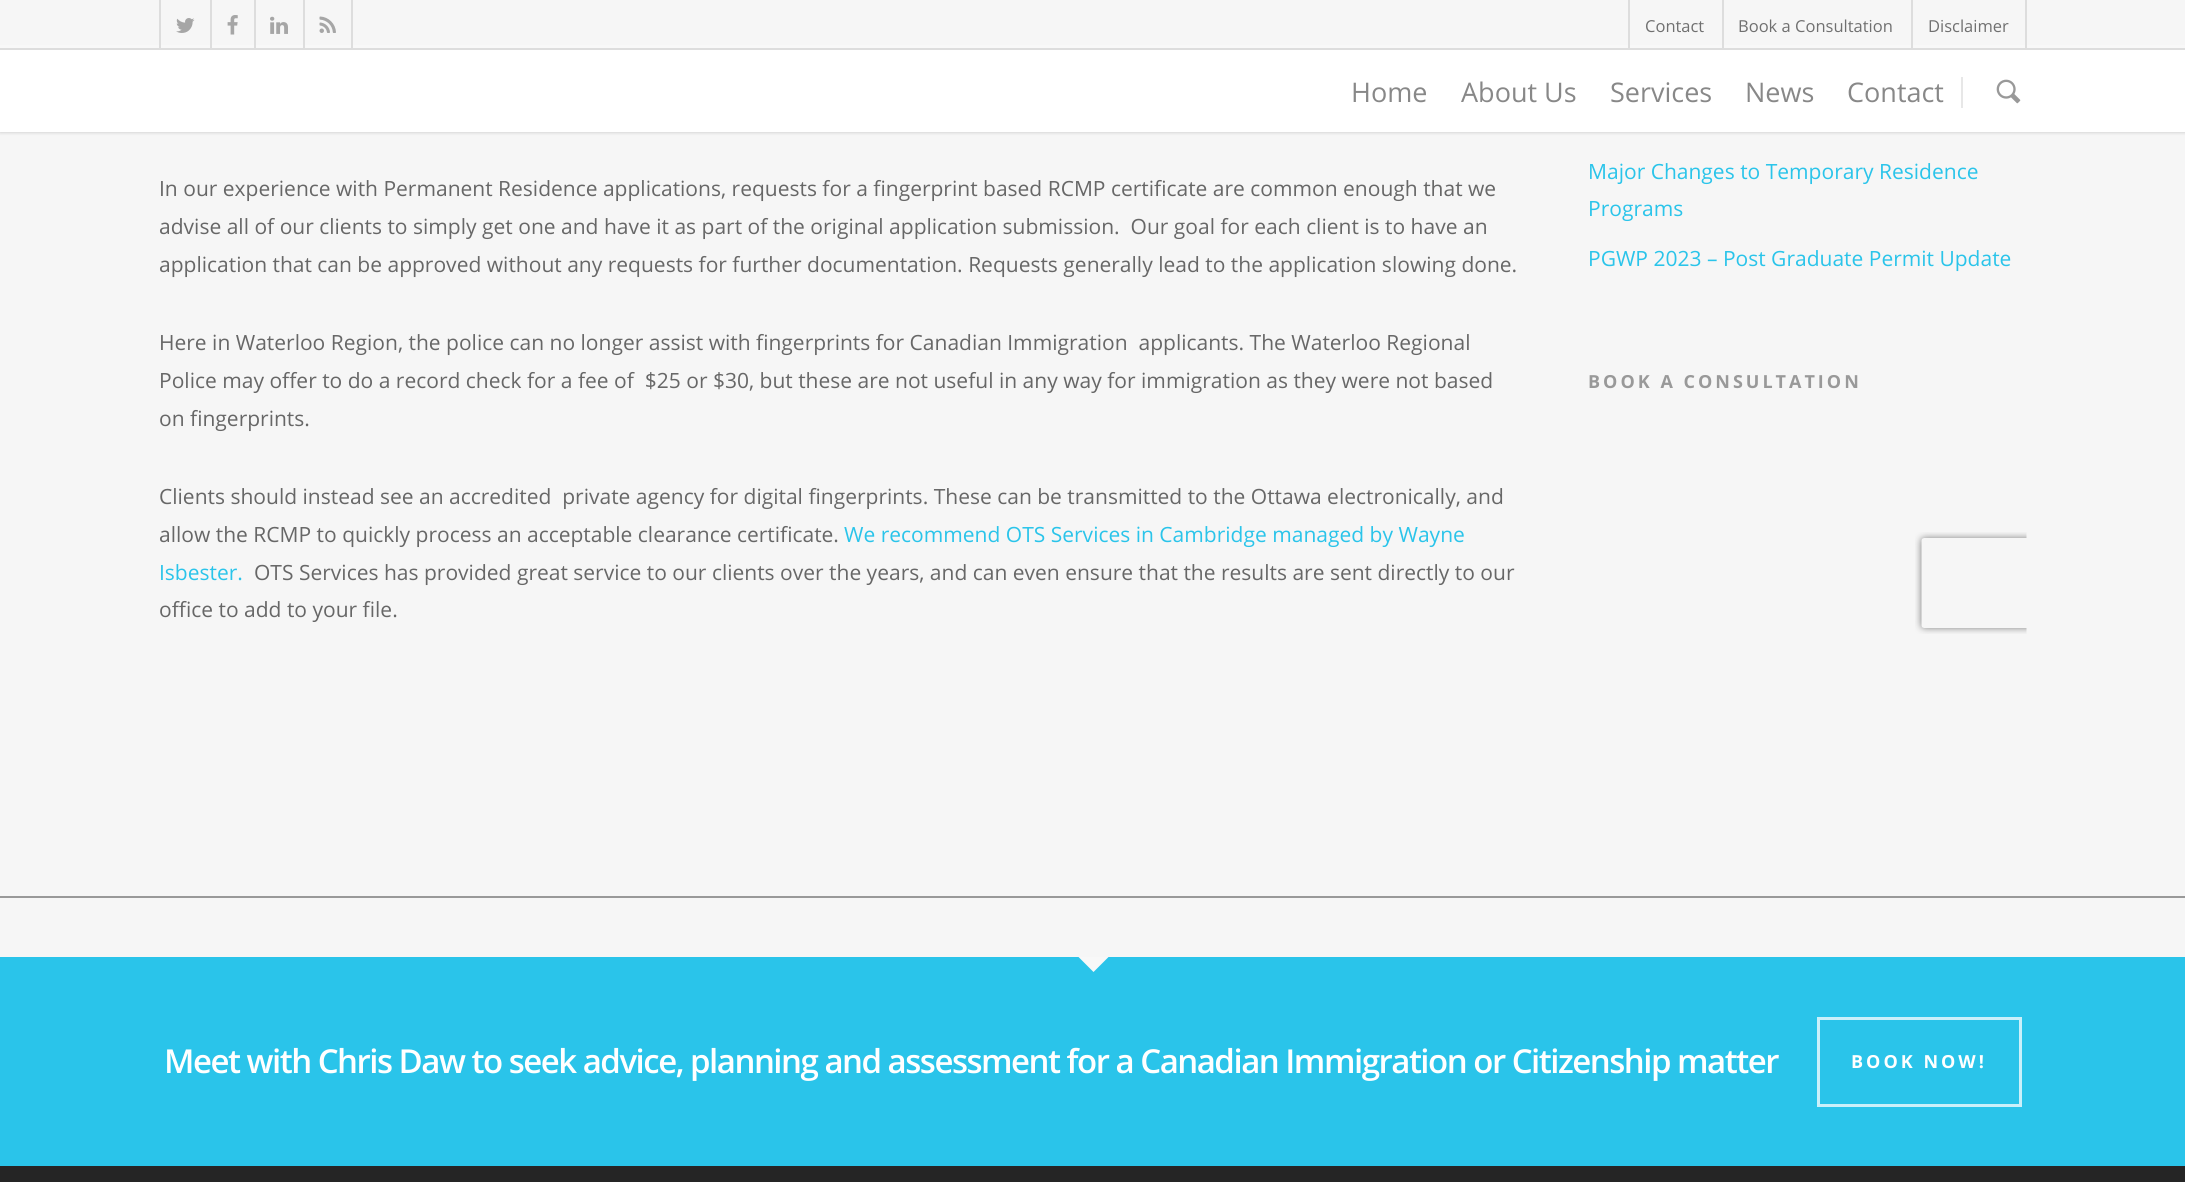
#include <cairo/cairo.h>
#include <math.h>
#include <stddef.h>


static void draw_spaced(cairo_t *cr, double x, double y, const char *s, double letter, double word) {
  cairo_move_to(cr, x, y);
  while (*s) {
    char ch[5] = {0};
    int n = 0;
    do ch[n++] = *s++; while ((*s & 0xC0) == 0x80);
    cairo_show_text(cr, ch);
    cairo_rel_move_to(cr, letter + word * (*ch == ' '), 0);
  }
}

static void rounded_rect(cairo_t *cr, double x, double y, double w, double h, double r) {
  cairo_new_sub_path(cr);
  cairo_arc(cr, x + w - r, y + h - r, r, 0, M_PI / 2);
  cairo_arc(cr, x + r, y + h - r, r, M_PI / 2, M_PI);
  cairo_arc(cr, x + r, y + r, r, M_PI, 1.5 * M_PI);
  cairo_arc(cr, x + w - r, y + r, r, 1.5 * M_PI, 2 * M_PI);
  cairo_close_path(cr);
}

static void draw_shadow(cairo_t *cr, double x, double y, double w, double h, double r, double blur, double alpha) {
  cairo_push_group_with_content(cr, CAIRO_CONTENT_ALPHA);
  cairo_set_operator(cr, CAIRO_OPERATOR_SOURCE);
  for (int i = 15; i >= -15 && fmin(w, h) + blur * i / 3 > 0; i -= 2) {
    double e = blur * i / 6;
    cairo_set_source_rgba(cr, 0, 0, 0, alpha * erfc((i - 1) / 8.5) / 2);
    rounded_rect(cr, x - e, y - e, w + 2 * e, h + 2 * e, fmax(0, fmin(r + e + blur * .6, fmin(w, h) / 2 + e)));
    cairo_fill(cr);
  }
  cairo_pattern_t *soft = cairo_pop_group(cr);
  cairo_mask(cr, soft);
  cairo_pattern_destroy(soft);
}

static void draw_image(cairo_t *cr, const char *path, double x, double y, double w, double h) {
  cairo_surface_t *image = cairo_image_surface_create_from_png(path);
  cairo_save(cr);
  cairo_set_source_surface(cr, image, x, y);
  cairo_rectangle(cr, x, y, w, h);
  cairo_fill(cr);
  cairo_restore(cr);
  cairo_surface_destroy(image);
}

static void draw(cairo_t *cr) {
  cairo_set_source_rgb(cr, 246 / 255.0, 246 / 255.0, 246 / 255.0);
  cairo_paint(cr);
  cairo_set_source_rgb(cr, 0, 0, 0);
  draw_shadow(cr, 0, 50, 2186, 82, 0, 2, 0.22);
  cairo_set_source_rgb(cr, 248 / 255.0, 248 / 255.0, 248 / 255.0);
  cairo_rectangle(cr, 0, 45, 2185, 3);
  cairo_fill(cr);
  cairo_set_source_rgb(cr, 221 / 255.0, 221 / 255.0, 221 / 255.0);
  cairo_rectangle(cr, 0, 48, 2185, 2);
  cairo_fill(cr);
  cairo_rectangle(cr, 159, 0, 2, 48);
  cairo_fill(cr);
  draw_image(cr, "images/1.png", 176, 18, 19, 15);
  cairo_rectangle(cr, 210, 0, 2, 48);
  cairo_fill(cr);
  draw_image(cr, "images/2.png", 227, 15, 11, 20);
  cairo_rectangle(cr, 254, 0, 2, 48);
  cairo_fill(cr);
  draw_image(cr, "images/3.png", 270, 16, 18, 18);
  cairo_rectangle(cr, 351, 0, 2, 48);
  cairo_fill(cr);
  cairo_rectangle(cr, 303, 0, 2, 48);
  cairo_fill(cr);
  draw_image(cr, "images/4.png", 319, 16, 17, 17);
  cairo_rectangle(cr, 1628, 0, 2, 50);
  cairo_fill(cr);
  cairo_rectangle(cr, 1722, 0, 2, 50);
  cairo_fill(cr);
  cairo_rectangle(cr, 2025, 0, 2, 50);
  cairo_fill(cr);
  cairo_rectangle(cr, 1911, 0, 2, 50);
  cairo_fill(cr);
  cairo_set_source_rgb(cr, 1, 1, 1);
  cairo_rectangle(cr, 0, 50, 2185, 82);
  cairo_fill(cr);
  cairo_set_source_rgb(cr, 231 / 255.0, 231 / 255.0, 231 / 255.0);
  cairo_rectangle(cr, 1961, 77, 2, 31);
  cairo_fill(cr);
  draw_image(cr, "images/5.png", 1996, 79, 25, 25);
  draw_image(cr, "images/6.png", 1915, 532, 112, 102);
  cairo_set_source_rgb(cr, 153 / 255.0, 153 / 255.0, 153 / 255.0);
  cairo_rectangle(cr, 0, 896, 2185, 2);
  cairo_fill(cr);
  cairo_set_source_rgb(cr, 42 / 255.0, 196 / 255.0, 234 / 255.0);
  cairo_rectangle(cr, 0, 957, 2185, 209);
  cairo_fill(cr);
  cairo_set_source_rgb(cr, 248 / 255.0, 248 / 255.0, 248 / 255.0);
  cairo_new_path(cr);
  cairo_move_to(cr, 1078.5, 957);
  cairo_line_to(cr, 1108.5, 957);
  cairo_line_to(cr, 1093.5, 972);
  cairo_close_path(cr);
  cairo_fill(cr);
  cairo_rectangle(cr, 1818.5, 1018.5, 202, 87);
  cairo_set_source_rgb(cr, 202 / 255.0, 240 / 255.0, 250 / 255.0);
  cairo_set_line_width(cr, 3);
  cairo_stroke(cr);
  cairo_set_source_rgb(cr, 37 / 255.0, 37 / 255.0, 37 / 255.0);
  cairo_rectangle(cr, 0, 1166, 2185, 16);
  cairo_fill(cr);
  cairo_select_font_face(cr, "Open Sans", CAIRO_FONT_SLANT_NORMAL, CAIRO_FONT_WEIGHT_NORMAL);
  cairo_set_font_size(cr, 16.5);
  cairo_set_source_rgb(cr, 112 / 255.0, 112 / 255.0, 112 / 255.0);
  cairo_move_to(cr, 1645, 32);
  cairo_show_text(cr, "Contact");
  cairo_move_to(cr, 1738, 32);
  cairo_show_text(cr, "Book a Consultation");
  cairo_move_to(cr, 1928, 32);
  cairo_show_text(cr, "Disclaimer");
  cairo_set_font_size(cr, 27);
  cairo_set_source_rgb(cr, 136 / 255.0, 136 / 255.0, 136 / 255.0);
  cairo_move_to(cr, 1351, 102);
  cairo_show_text(cr, "Home");
  cairo_move_to(cr, 1461, 102);
  cairo_show_text(cr, "About Us");
  cairo_move_to(cr, 1610, 102);
  cairo_show_text(cr, "Services");
  cairo_move_to(cr, 1745, 102);
  cairo_show_text(cr, "News");
  cairo_move_to(cr, 1847, 102);
  cairo_show_text(cr, "Contact");
  cairo_set_font_size(cr, 21);
  cairo_set_source_rgb(cr, 103 / 255.0, 103 / 255.0, 103 / 255.0);
  cairo_move_to(cr, 159, 196);
  cairo_show_text(cr, "In our experience with Permanent Residence applications, requests for a fingerprint based RCMP certificate are common enough that we");
  cairo_move_to(cr, 159, 234);
  cairo_show_text(cr, "advise all of our clients to simply get one and have it as part of the original application submission.  Our goal for each client is to have an");
  cairo_move_to(cr, 159, 272);
  cairo_show_text(cr, "application that can be approved without any requests for further documentation. Requests generally lead to the application slowing done.");
  cairo_move_to(cr, 159, 350);
  cairo_show_text(cr, "Here in Waterloo Region, the police can no longer assist with fingerprints for Canadian Immigration  applicants. The Waterloo Regional");
  cairo_move_to(cr, 159, 388);
  cairo_show_text(cr, "Police may offer to do a record check for a fee of  $25 or $30, but these are not useful in any way for immigration as they were not based");
  cairo_move_to(cr, 159, 426);
  cairo_show_text(cr, "on fingerprints.");
  cairo_move_to(cr, 159, 504);
  cairo_show_text(cr, "Clients should instead see an accredited  private agency for digital fingerprints. These can be transmitted to the Ottawa electronically, and");
  cairo_move_to(cr, 159, 542);
  cairo_show_text(cr, "allow the RCMP to quickly process an acceptable clearance certificate.");
  cairo_set_source_rgb(cr, 42 / 255.0, 196 / 255.0, 234 / 255.0);
  cairo_move_to(cr, 844, 542);
  cairo_show_text(cr, "We recommend OTS Services in Cambridge managed by Wayne");
  cairo_move_to(cr, 159, 580);
  cairo_show_text(cr, "Isbester.");
  cairo_set_source_rgb(cr, 103 / 255.0, 103 / 255.0, 103 / 255.0);
  cairo_move_to(cr, 254, 580);
  cairo_show_text(cr, "OTS Services has provided great service to our clients over the years, and can even ensure that the results are sent directly to our");
  cairo_move_to(cr, 159, 617);
  cairo_show_text(cr, "office to add to your file.");
  cairo_set_source_rgb(cr, 42 / 255.0, 196 / 255.0, 234 / 255.0);
  cairo_move_to(cr, 1588, 179);
  cairo_show_text(cr, "Major Changes to Temporary Residence");
  cairo_move_to(cr, 1588, 216);
  cairo_show_text(cr, "Programs");
  cairo_move_to(cr, 1588, 266);
  cairo_show_text(cr, "PGWP 2023 – Post Graduate Permit Update");
  cairo_select_font_face(cr, "Open Sans", CAIRO_FONT_SLANT_NORMAL, CAIRO_FONT_WEIGHT_BOLD);
  cairo_set_font_size(cr, 18);
  cairo_set_source_rgb(cr, 153 / 255.0, 153 / 255.0, 153 / 255.0);
  draw_spaced(cr, 1588, 388, "BOOK A CONSULTATION", 3, 0);
  cairo_select_font_face(cr, "Open Sans SemiBold", CAIRO_FONT_SLANT_NORMAL, CAIRO_FONT_WEIGHT_NORMAL);
  cairo_set_font_size(cr, 33);
  cairo_set_source_rgb(cr, 1, 1, 1);
  draw_spaced(cr, 164, 1073, "Meet with Chris Daw to seek advice, planning and assessment for a Canadian Immigration or Citizenship matter", -1.5, 0);
  cairo_select_font_face(cr, "Open Sans", CAIRO_FONT_SLANT_NORMAL, CAIRO_FONT_WEIGHT_BOLD);
  cairo_set_font_size(cr, 18);
  draw_spaced(cr, 1851, 1068, "BOOK NOW!", 3, 0);
}

int main(void) {
  cairo_surface_t *surface = cairo_image_surface_create(CAIRO_FORMAT_RGB24, 2185, 1182);
  cairo_t *cr = cairo_create(surface);
  cairo_font_options_t *options = cairo_font_options_create();
  cairo_font_options_set_hint_metrics(options, CAIRO_HINT_METRICS_OFF);
  cairo_font_options_set_hint_style(options, CAIRO_HINT_STYLE_NONE);
  cairo_set_font_options(cr, options);
  cairo_set_miter_limit(cr, 4);
  draw(cr);
  cairo_surface_write_to_png(surface, "out.png");
  cairo_font_options_destroy(options);
  cairo_destroy(cr);
  cairo_surface_destroy(surface);
  return 0;
}
